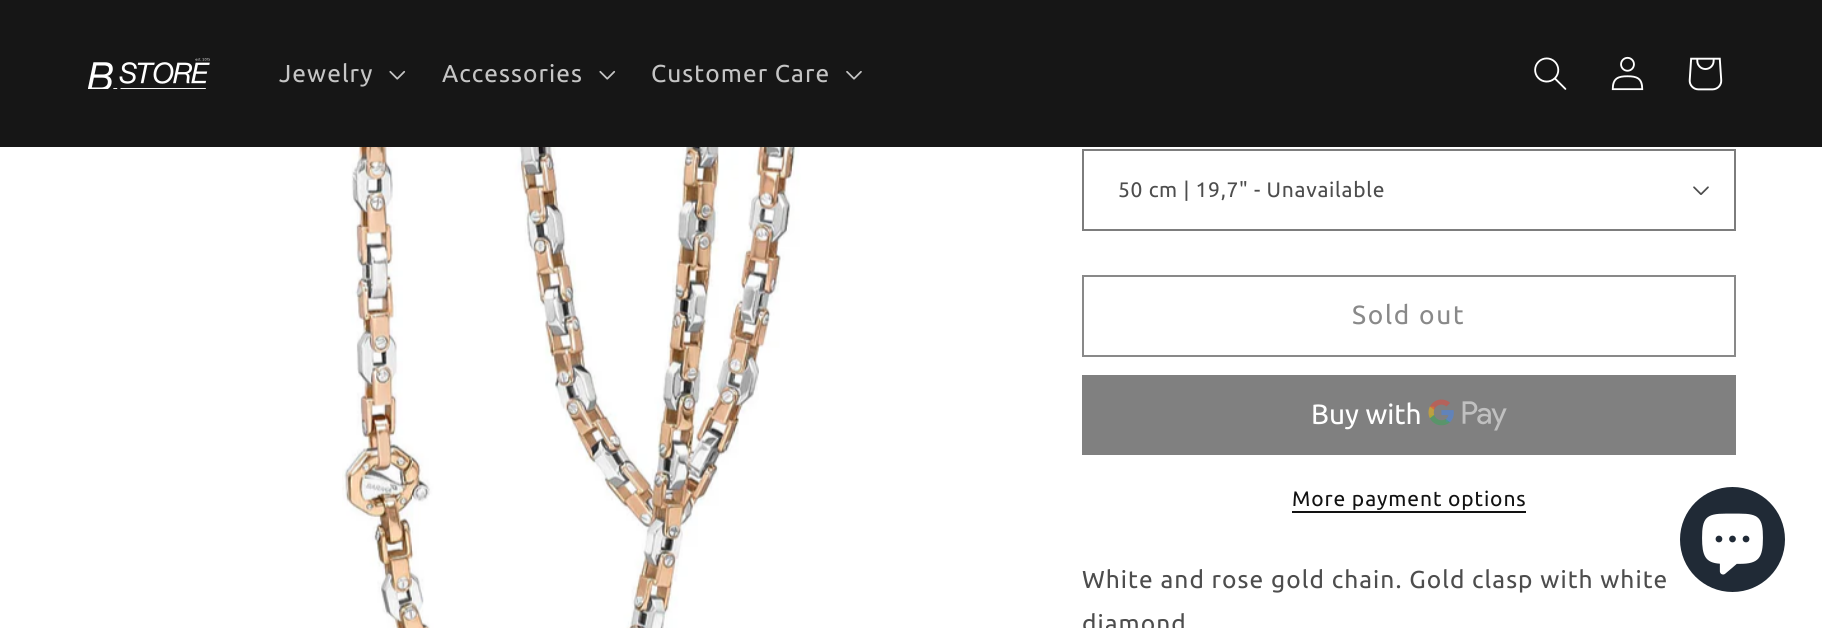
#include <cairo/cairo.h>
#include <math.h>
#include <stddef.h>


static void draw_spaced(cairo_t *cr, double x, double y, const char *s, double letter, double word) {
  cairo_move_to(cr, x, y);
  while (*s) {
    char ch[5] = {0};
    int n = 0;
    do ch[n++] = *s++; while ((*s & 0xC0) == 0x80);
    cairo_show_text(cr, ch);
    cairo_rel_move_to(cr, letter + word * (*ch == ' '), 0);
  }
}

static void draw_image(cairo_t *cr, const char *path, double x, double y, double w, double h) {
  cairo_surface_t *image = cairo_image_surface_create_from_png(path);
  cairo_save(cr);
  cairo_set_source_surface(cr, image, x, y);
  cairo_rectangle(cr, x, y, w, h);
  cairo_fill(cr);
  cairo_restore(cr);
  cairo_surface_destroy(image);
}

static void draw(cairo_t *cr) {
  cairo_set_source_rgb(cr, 1, 1, 1);
  cairo_paint(cr);
  cairo_set_source_rgb(cr, 22 / 255.0, 22 / 255.0, 22 / 255.0);
  cairo_rectangle(cr, 0, 0, 1822, 147);
  cairo_fill(cr);
  draw_image(cr, "images/1.png", 88, 58, 122, 31);
  draw_image(cr, "images/2.png", 389, 70, 17, 10);
  draw_image(cr, "images/2.png", 599, 70, 17, 10);
  draw_image(cr, "images/3.png", 846, 71, 16, 9);
  draw_image(cr, "images/4.png", 1534, 57, 33, 33);
  draw_image(cr, "images/5.png", 1611, 56, 33, 35);
  draw_image(cr, "images/6.png", 1688, 57, 35, 34);
  draw_image(cr, "images/7.png", 342, 147, 471, 481);
  draw_image(cr, "images/8.png", 1693, 186, 16, 9);
  cairo_rectangle(cr, 1083, 150, 652, 80);
  cairo_set_source_rgb(cr, 125 / 255.0, 125 / 255.0, 125 / 255.0);
  cairo_stroke(cr);
  cairo_rectangle(cr, 1083, 276, 652, 80);
  cairo_set_source_rgb(cr, 137 / 255.0, 137 / 255.0, 137 / 255.0);
  cairo_stroke(cr);
  cairo_set_source_rgb(cr, 128 / 255.0, 128 / 255.0, 128 / 255.0);
  cairo_rectangle(cr, 1082, 375, 654, 80);
  cairo_fill(cr);
  draw_image(cr, "images/9.png", 1428, 399, 79, 32);
  cairo_set_source_rgb(cr, 18 / 255.0, 18 / 255.0, 18 / 255.0);
  cairo_rectangle(cr, 1292, 511, 234, 2);
  cairo_fill(cr);
  cairo_set_source_rgb(cr, 32 / 255.0, 42 / 255.0, 54 / 255.0);
  cairo_arc(cr, 1732.5, 539.5, 52.5, 0, 2 * M_PI);
  cairo_fill(cr);
  draw_image(cr, "images/10.png", 1702, 513, 61, 62);
  cairo_select_font_face(cr, "Ubuntu", CAIRO_FONT_SLANT_NORMAL, CAIRO_FONT_WEIGHT_NORMAL);
  cairo_set_font_size(cr, 24.5);
  cairo_set_source_rgb(cr, 197 / 255.0, 197 / 255.0, 197 / 255.0);
  draw_spaced(cr, 279, 82, "Jewelry", 1.05, 0);
  draw_spaced(cr, 442, 82, "Accessories", 1.05, 0);
  draw_spaced(cr, 651, 82, "Customer Care", 1.05, 0);
  cairo_set_font_size(cr, 21);
  cairo_set_source_rgb(cr, 77 / 255.0, 77 / 255.0, 77 / 255.0);
  draw_spaced(cr, 1118, 197, "50 cm | 19,7\" - Unavailable", 0.7, 0);
  cairo_set_font_size(cr, 26.25);
  cairo_set_source_rgb(cr, 137 / 255.0, 137 / 255.0, 137 / 255.0);
  draw_spaced(cr, 1352, 324, "Sold out", 1.75, 0);
  cairo_set_font_size(cr, 28);
  cairo_set_source_rgb(cr, 1, 1, 1);
  cairo_move_to(cr, 1311, 424);
  cairo_show_text(cr, "Buy with");
  cairo_set_font_size(cr, 21);
  cairo_set_source_rgb(cr, 18 / 255.0, 18 / 255.0, 18 / 255.0);
  draw_spaced(cr, 1292, 506, "More payment options", 0.9, 0);
  cairo_set_font_size(cr, 24.5);
  cairo_set_source_rgb(cr, 77 / 255.0, 77 / 255.0, 77 / 255.0);
  draw_spaced(cr, 1082, 588, "White and rose gold chain. Gold clasp with white", 1.05, 0);
  draw_spaced(cr, 1082, 632, "diamond", 1.05, 0);
}

int main(void) {
  cairo_surface_t *surface = cairo_image_surface_create(CAIRO_FORMAT_RGB24, 1822, 628);
  cairo_t *cr = cairo_create(surface);
  cairo_font_options_t *options = cairo_font_options_create();
  cairo_font_options_set_hint_metrics(options, CAIRO_HINT_METRICS_OFF);
  cairo_font_options_set_hint_style(options, CAIRO_HINT_STYLE_NONE);
  cairo_set_font_options(cr, options);
  cairo_set_miter_limit(cr, 4);
  draw(cr);
  cairo_surface_write_to_png(surface, "out.png");
  cairo_font_options_destroy(options);
  cairo_destroy(cr);
  cairo_surface_destroy(surface);
  return 0;
}
